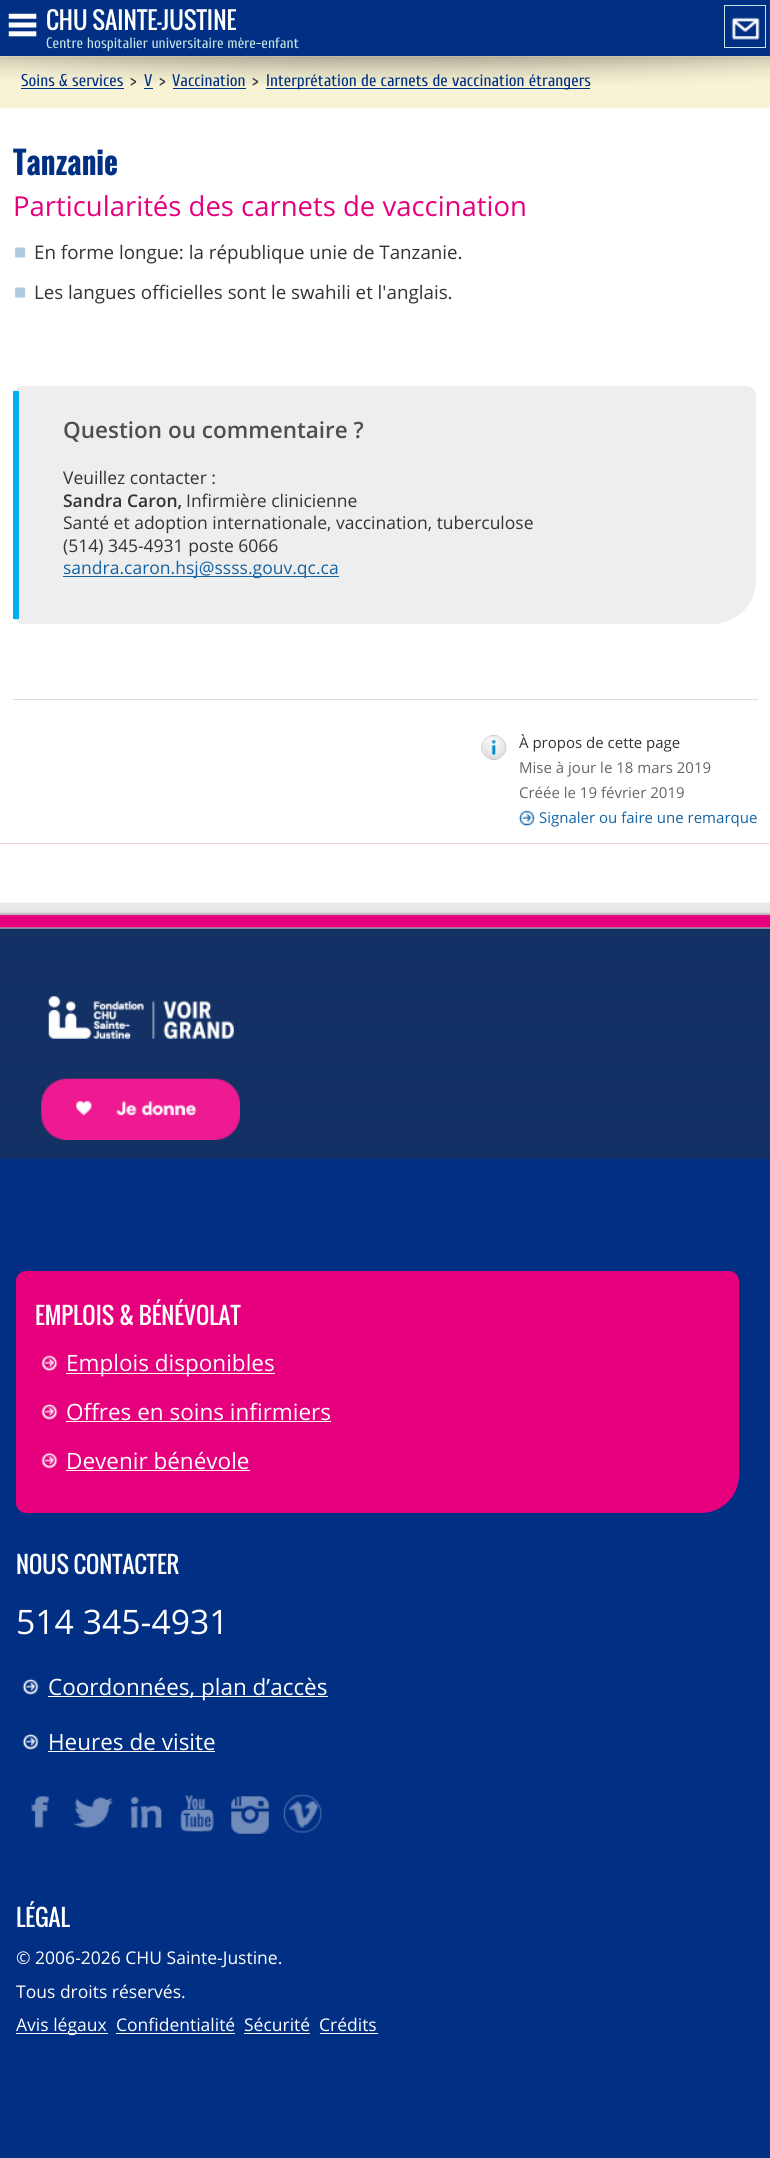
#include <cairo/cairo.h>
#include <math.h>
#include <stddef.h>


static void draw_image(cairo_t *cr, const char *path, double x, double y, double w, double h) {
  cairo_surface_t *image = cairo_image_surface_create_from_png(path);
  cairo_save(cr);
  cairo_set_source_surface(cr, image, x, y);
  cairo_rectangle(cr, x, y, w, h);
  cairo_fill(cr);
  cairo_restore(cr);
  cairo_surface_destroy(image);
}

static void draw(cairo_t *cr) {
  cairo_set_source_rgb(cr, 1, 1, 1);
  cairo_paint(cr);
  cairo_set_source_rgb(cr, 0, 47 / 255.0, 132 / 255.0);
  cairo_rectangle(cr, 0, 0, 770, 56);
  cairo_fill(cr);
  draw_image(cr, "images/1.png", 8, 13, 29, 24);
  cairo_rectangle(cr, 724.5, 5.5, 41, 42);
  cairo_set_source_rgb(cr, 198 / 255.0, 229 / 255.0, 228 / 255.0);
  cairo_set_line_width(cr, 1);
  cairo_stroke(cr);
  draw_image(cr, "images/2.png", 731, 17, 29, 23);
  cairo_set_source_rgb(cr, 248 / 255.0, 243 / 255.0, 213 / 255.0);
  cairo_rectangle(cr, 0, 56, 770, 52);
  cairo_fill(cr);
  draw_image(cr, "images/3.png", 0, 56, 770, 28);
  cairo_set_source_rgb(cr, 0, 47 / 255.0, 132 / 255.0);
  cairo_rectangle(cr, 21, 88, 103, 1);
  cairo_fill(cr);
  cairo_rectangle(cr, 144, 88, 9, 1);
  cairo_fill(cr);
  cairo_rectangle(cr, 173, 88, 73, 1);
  cairo_fill(cr);
  cairo_rectangle(cr, 266, 88, 324, 1);
  cairo_fill(cr);
  draw_image(cr, "images/4.png", 14, 247, 12, 11);
  draw_image(cr, "images/5.png", 14, 287, 12, 11);
  cairo_set_source_rgb(cr, 238 / 255.0, 238 / 255.0, 238 / 255.0);
  cairo_new_path(cr);
  cairo_move_to(cr, 23, 386);
  cairo_line_to(cr, 746, 386);
  cairo_curve_to(cr, 751.5, 386, 756, 390.5, 756, 396);
  cairo_line_to(cr, 756, 580);
  cairo_curve_to(cr, 756, 604.5, 736.5, 624, 712, 624);
  cairo_line_to(cr, 23, 624);
  cairo_curve_to(cr, 17.5, 624, 13, 619.5, 13, 614);
  cairo_line_to(cr, 13, 396);
  cairo_curve_to(cr, 13, 390.5, 17.5, 386, 23, 386);
  cairo_close_path(cr);
  cairo_fill(cr);
  cairo_set_source_rgb(cr, 0, 173 / 255.0, 239 / 255.0);
  cairo_rectangle(cr, 13, 391, 6, 228);
  cairo_fill(cr);
  cairo_set_source_rgb(cr, 19 / 255.0, 99 / 255.0, 165 / 255.0);
  cairo_rectangle(cr, 63, 576, 276, 1);
  cairo_fill(cr);
  cairo_set_source_rgb(cr, 220 / 255.0, 220 / 255.0, 220 / 255.0);
  cairo_rectangle(cr, 13, 699, 745, 1);
  cairo_fill(cr);
  draw_image(cr, "images/6.png", 481, 735, 26, 25);
  draw_image(cr, "images/7.png", 518, 810, 17, 17);
  cairo_set_source_rgb(cr, 0, 47 / 255.0, 132 / 255.0);
  cairo_rectangle(cr, 0, 928, 770, 1230);
  cairo_fill(cr);
  draw_image(cr, "images/8.png", 0, 843, 770, 86);
  draw_image(cr, "images/9.png", 0, 927, 770, 232);
  draw_image(cr, "images/10.png", 41, 996, 199, 144);
  cairo_set_source_rgb(cr, 230 / 255.0, 0, 126 / 255.0);
  cairo_new_path(cr);
  cairo_move_to(cr, 26, 1271);
  cairo_line_to(cr, 729, 1271);
  cairo_curve_to(cr, 734.5, 1271, 739, 1275.5, 739, 1281);
  cairo_line_to(cr, 739, 1475);
  cairo_curve_to(cr, 739, 1496, 722, 1513, 701, 1513);
  cairo_line_to(cr, 26, 1513);
  cairo_curve_to(cr, 20.5, 1513, 16, 1508.5, 16, 1503);
  cairo_line_to(cr, 16, 1281);
  cairo_curve_to(cr, 16, 1275.5, 20.5, 1271, 26, 1271);
  cairo_close_path(cr);
  cairo_fill(cr);
  draw_image(cr, "images/11.png", 41, 1355, 17, 17);
  cairo_set_source_rgb(cr, 1, 1, 1);
  cairo_rectangle(cr, 66, 1373, 209, 1);
  cairo_fill(cr);
  draw_image(cr, "images/12.png", 41, 1403, 17, 17);
  cairo_rectangle(cr, 66, 1421, 265, 1);
  cairo_fill(cr);
  draw_image(cr, "images/13.png", 41, 1452, 17, 17);
  cairo_rectangle(cr, 66, 1470, 184, 1);
  cairo_fill(cr);
  draw_image(cr, "images/14.png", 22, 1678, 17, 17);
  cairo_rectangle(cr, 48, 1696, 280, 1);
  cairo_fill(cr);
  draw_image(cr, "images/14.png", 22, 1733, 17, 17);
  cairo_rectangle(cr, 48, 1751, 167, 1);
  cairo_fill(cr);
  draw_image(cr, "images/15.png", 31, 1796, 18, 32);
  draw_image(cr, "images/16.png", 73, 1797, 40, 31);
  draw_image(cr, "images/17.png", 130, 1796, 32, 32);
  draw_image(cr, "images/18.png", 180, 1795, 34, 37);
  draw_image(cr, "images/19.png", 231, 1796, 38, 38);
  draw_image(cr, "images/20.png", 283, 1794, 39, 39);
  cairo_rectangle(cr, 16, 2033, 92, 1);
  cairo_fill(cr);
  cairo_rectangle(cr, 116, 2033, 119, 1);
  cairo_fill(cr);
  cairo_rectangle(cr, 244, 2033, 66, 1);
  cairo_fill(cr);
  cairo_rectangle(cr, 320, 2033, 58, 1);
  cairo_fill(cr);
  cairo_select_font_face(cr, "Oswald", CAIRO_FONT_SLANT_NORMAL, CAIRO_FONT_WEIGHT_NORMAL);
  cairo_set_font_size(cr, 23.75);
  cairo_move_to(cr, 46, 30);
  cairo_show_text(cr, "CHU SAINTE-JUSTINE");
  cairo_select_font_face(cr, "Cuprum", CAIRO_FONT_SLANT_NORMAL, CAIRO_FONT_WEIGHT_NORMAL);
  cairo_set_font_size(cr, 15);
  cairo_set_source_rgb(cr, 198 / 255.0, 229 / 255.0, 228 / 255.0);
  cairo_move_to(cr, 46, 48);
  cairo_show_text(cr, "Centre hospitalier universitaire mère-enfant");
  cairo_set_font_size(cr, 16.9);
  cairo_set_source_rgb(cr, 0, 47 / 255.0, 132 / 255.0);
  cairo_move_to(cr, 21, 86);
  cairo_show_text(cr, "Soins & services");
  cairo_set_source_rgb(cr, 51 / 255.0, 51 / 255.0, 51 / 255.0);
  cairo_move_to(cr, 130, 86);
  cairo_show_text(cr, ">");
  cairo_set_source_rgb(cr, 0, 47 / 255.0, 132 / 255.0);
  cairo_move_to(cr, 144, 86);
  cairo_show_text(cr, "V");
  cairo_set_source_rgb(cr, 51 / 255.0, 51 / 255.0, 51 / 255.0);
  cairo_move_to(cr, 159, 86);
  cairo_show_text(cr, ">");
  cairo_set_source_rgb(cr, 0, 47 / 255.0, 132 / 255.0);
  cairo_move_to(cr, 172, 86);
  cairo_show_text(cr, "Vaccination");
  cairo_set_source_rgb(cr, 51 / 255.0, 51 / 255.0, 51 / 255.0);
  cairo_move_to(cr, 252, 86);
  cairo_show_text(cr, ">");
  cairo_set_source_rgb(cr, 0, 47 / 255.0, 132 / 255.0);
  cairo_move_to(cr, 266, 86);
  cairo_show_text(cr, "Interprétation de carnets de vaccination étrangers");
  cairo_select_font_face(cr, "Oswald", CAIRO_FONT_SLANT_NORMAL, CAIRO_FONT_WEIGHT_BOLD);
  cairo_set_font_size(cr, 30);
  cairo_move_to(cr, 13, 175);
  cairo_show_text(cr, "Tanzanie");
  cairo_select_font_face(cr, "Open Sans", CAIRO_FONT_SLANT_NORMAL, CAIRO_FONT_WEIGHT_NORMAL);
  cairo_set_font_size(cr, 27.5);
  cairo_set_source_rgb(cr, 230 / 255.0, 0, 126 / 255.0);
  cairo_move_to(cr, 13, 216);
  cairo_show_text(cr, "Particularités des carnets de vaccination");
  cairo_set_font_size(cr, 18.75);
  cairo_set_source_rgb(cr, 51 / 255.0, 51 / 255.0, 51 / 255.0);
  cairo_move_to(cr, 34, 259);
  cairo_show_text(cr, "En forme longue: la république unie de Tanzanie.");
  cairo_move_to(cr, 34, 299);
  cairo_show_text(cr, "Les langues officielles sont le swahili et l'anglais.");
  cairo_select_font_face(cr, "Open Sans SemiBold", CAIRO_FONT_SLANT_NORMAL, CAIRO_FONT_WEIGHT_NORMAL);
  cairo_set_font_size(cr, 22.5);
  cairo_set_source_rgb(cr, 79 / 255.0, 79 / 255.0, 79 / 255.0);
  cairo_move_to(cr, 63, 438);
  cairo_show_text(cr, "Question ou commentaire ?");
  cairo_select_font_face(cr, "Open Sans", CAIRO_FONT_SLANT_NORMAL, CAIRO_FONT_WEIGHT_NORMAL);
  cairo_set_font_size(cr, 17.5);
  cairo_set_source_rgb(cr, 51 / 255.0, 51 / 255.0, 51 / 255.0);
  cairo_move_to(cr, 63, 484);
  cairo_show_text(cr, "Veuillez contacter :");
  cairo_select_font_face(cr, "Open Sans SemiBold", CAIRO_FONT_SLANT_NORMAL, CAIRO_FONT_WEIGHT_NORMAL);
  cairo_move_to(cr, 63, 507);
  cairo_show_text(cr, "Sandra Caron,");
  cairo_select_font_face(cr, "Open Sans", CAIRO_FONT_SLANT_NORMAL, CAIRO_FONT_WEIGHT_NORMAL);
  cairo_move_to(cr, 186, 507);
  cairo_show_text(cr, "Infirmière clinicienne");
  cairo_move_to(cr, 63, 529);
  cairo_show_text(cr, "Santé et adoption internationale, vaccination, tuberculose");
  cairo_move_to(cr, 63, 552);
  cairo_show_text(cr, "(514) 345-4931 poste 6066");
  cairo_set_source_rgb(cr, 19 / 255.0, 99 / 255.0, 165 / 255.0);
  cairo_move_to(cr, 63, 574);
  cairo_show_text(cr, "sandra.caron.hsj@ssss.gouv.qc.ca");
  cairo_set_font_size(cr, 15);
  cairo_set_source_rgb(cr, 51 / 255.0, 51 / 255.0, 51 / 255.0);
  cairo_move_to(cr, 519, 748);
  cairo_show_text(cr, "À propos de cette page");
  cairo_set_source_rgb(cr, 102 / 255.0, 102 / 255.0, 102 / 255.0);
  cairo_move_to(cr, 519, 773);
  cairo_show_text(cr, "Mise à jour le 18 mars 2019");
  cairo_move_to(cr, 519, 798);
  cairo_show_text(cr, "Créée le 19 février 2019");
  cairo_set_source_rgb(cr, 19 / 255.0, 99 / 255.0, 165 / 255.0);
  cairo_move_to(cr, 539, 823);
  cairo_show_text(cr, "Signaler ou faire une remarque");
  cairo_select_font_face(cr, "Oswald", CAIRO_FONT_SLANT_NORMAL, CAIRO_FONT_WEIGHT_NORMAL);
  cairo_set_font_size(cr, 23.1);
  cairo_set_source_rgb(cr, 1, 1, 1);
  cairo_move_to(cr, 35, 1325);
  cairo_show_text(cr, "EMPLOIS & BÉNÉVOLAT");
  cairo_select_font_face(cr, "Open Sans", CAIRO_FONT_SLANT_NORMAL, CAIRO_FONT_WEIGHT_NORMAL);
  cairo_set_font_size(cr, 22.5);
  cairo_move_to(cr, 66, 1371);
  cairo_show_text(cr, "Emplois disponibles");
  cairo_move_to(cr, 66, 1420);
  cairo_show_text(cr, "Offres en soins infirmiers");
  cairo_move_to(cr, 66, 1469);
  cairo_show_text(cr, "Devenir bénévole");
  cairo_select_font_face(cr, "Oswald", CAIRO_FONT_SLANT_NORMAL, CAIRO_FONT_WEIGHT_NORMAL);
  cairo_set_font_size(cr, 23.1);
  cairo_move_to(cr, 16, 1574);
  cairo_show_text(cr, "NOUS CONTACTER");
  cairo_select_font_face(cr, "Open Sans", CAIRO_FONT_SLANT_NORMAL, CAIRO_FONT_WEIGHT_NORMAL);
  cairo_set_font_size(cr, 33.75);
  cairo_move_to(cr, 16, 1634);
  cairo_show_text(cr, "514 345-4931");
  cairo_set_font_size(cr, 22.5);
  cairo_move_to(cr, 48, 1695);
  cairo_show_text(cr, "Coordonnées, plan d’accès");
  cairo_move_to(cr, 48, 1750);
  cairo_show_text(cr, "Heures de visite");
  cairo_select_font_face(cr, "Oswald", CAIRO_FONT_SLANT_NORMAL, CAIRO_FONT_WEIGHT_NORMAL);
  cairo_set_font_size(cr, 23.1);
  cairo_move_to(cr, 16, 1927);
  cairo_show_text(cr, "LÉGAL");
  cairo_select_font_face(cr, "Open Sans", CAIRO_FONT_SLANT_NORMAL, CAIRO_FONT_WEIGHT_NORMAL);
  cairo_set_font_size(cr, 17.5);
  cairo_move_to(cr, 16, 1964);
  cairo_show_text(cr, "© 2006-2026 CHU Sainte-Justine.");
  cairo_move_to(cr, 16, 1998);
  cairo_show_text(cr, "Tous droits réservés.");
  cairo_move_to(cr, 16, 2031);
  cairo_show_text(cr, "Avis légaux");
  cairo_move_to(cr, 116, 2031);
  cairo_show_text(cr, "Confidentialité");
  cairo_move_to(cr, 244, 2031);
  cairo_show_text(cr, "Sécurité");
  cairo_move_to(cr, 319, 2031);
  cairo_show_text(cr, "Crédits");
}

int main(void) {
  cairo_surface_t *surface = cairo_image_surface_create(CAIRO_FORMAT_RGB24, 770, 2158);
  cairo_t *cr = cairo_create(surface);
  cairo_font_options_t *options = cairo_font_options_create();
  cairo_font_options_set_hint_metrics(options, CAIRO_HINT_METRICS_OFF);
  cairo_font_options_set_hint_style(options, CAIRO_HINT_STYLE_NONE);
  cairo_set_font_options(cr, options);
  cairo_set_miter_limit(cr, 4);
  draw(cr);
  cairo_surface_write_to_png(surface, "out.png");
  cairo_font_options_destroy(options);
  cairo_destroy(cr);
  cairo_surface_destroy(surface);
  return 0;
}
